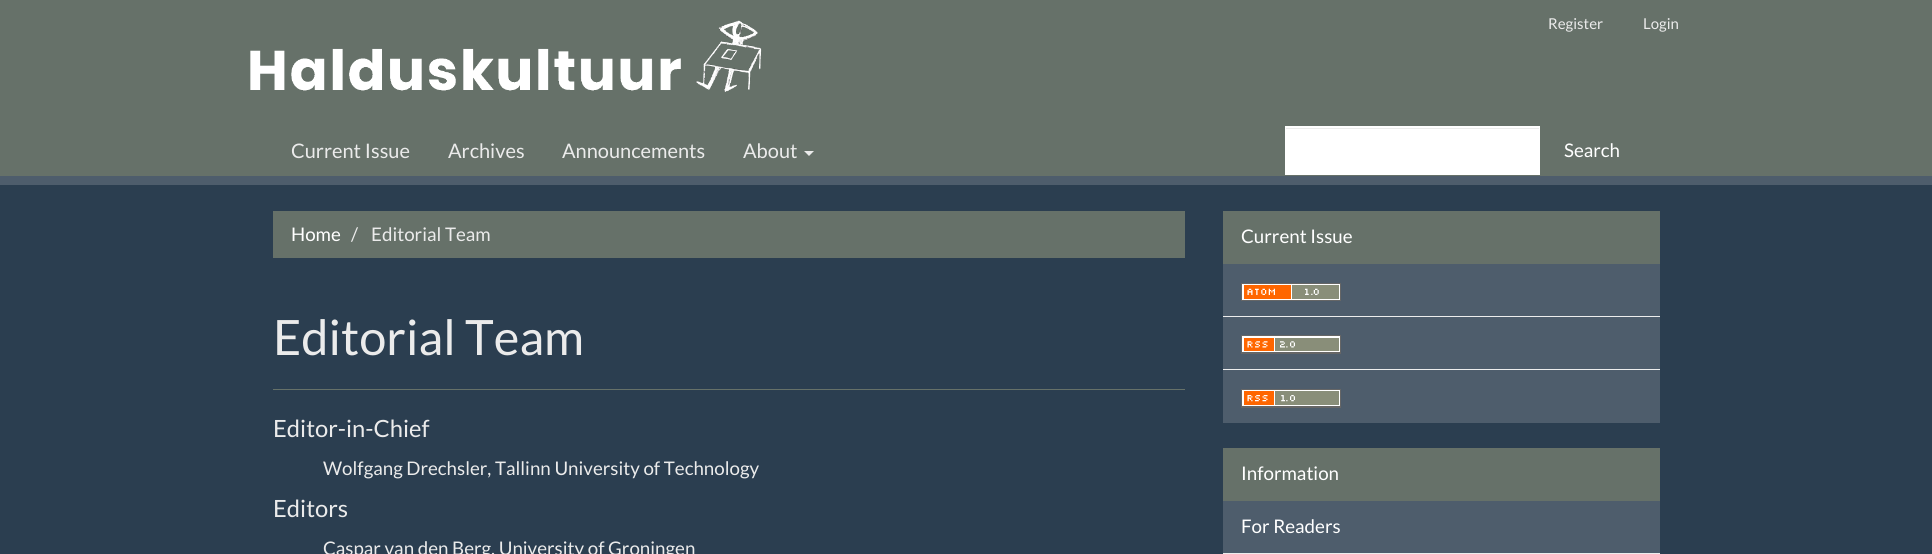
#include <cairo/cairo.h>
#include <math.h>
#include <stddef.h>


static void draw_image(cairo_t *cr, const char *path, double x, double y, double w, double h) {
  cairo_surface_t *image = cairo_image_surface_create_from_png(path);
  cairo_save(cr);
  cairo_set_source_surface(cr, image, x, y);
  cairo_rectangle(cr, x, y, w, h);
  cairo_fill(cr);
  cairo_restore(cr);
  cairo_surface_destroy(image);
}

static void draw(cairo_t *cr) {
  cairo_set_source_rgb(cr, 43 / 255.0, 62 / 255.0, 80 / 255.0);
  cairo_paint(cr);
  cairo_set_source_rgb(cr, 102 / 255.0, 113 / 255.0, 105 / 255.0);
  cairo_rectangle(cr, 0, 0, 1932, 176);
  cairo_fill(cr);
  cairo_set_source_rgb(cr, 78 / 255.0, 93 / 255.0, 108 / 255.0);
  cairo_rectangle(cr, 0, 176, 1932, 9);
  cairo_fill(cr);
  draw_image(cr, "images/1.png", 250, 20, 512, 72);
  cairo_set_source_rgb(cr, 235 / 255.0, 235 / 255.0, 235 / 255.0);
  cairo_new_path(cr);
  cairo_move_to(cr, 804, 151);
  cairo_line_to(cr, 814, 151);
  cairo_line_to(cr, 809, 156);
  cairo_close_path(cr);
  cairo_fill(cr);
  cairo_set_source_rgb(cr, 1, 1, 1);
  cairo_rectangle(cr, 1285, 126, 255, 49);
  cairo_fill(cr);
  cairo_set_source_rgb(cr, 236 / 255.0, 236 / 255.0, 236 / 255.0);
  cairo_rectangle(cr, 1286, 128, 253, 1);
  cairo_fill(cr);
  cairo_set_source_rgb(cr, 102 / 255.0, 113 / 255.0, 105 / 255.0);
  cairo_rectangle(cr, 273, 211, 912, 47);
  cairo_fill(cr);
  cairo_rectangle(cr, 273, 389, 912, 1);
  cairo_fill(cr);
  cairo_rectangle(cr, 1223, 211, 437, 53);
  cairo_fill(cr);
  cairo_set_source_rgb(cr, 78 / 255.0, 93 / 255.0, 108 / 255.0);
  cairo_rectangle(cr, 1223, 264, 437, 105);
  cairo_fill(cr);
  draw_image(cr, "images/2.png", 1241, 283, 100, 18);
  cairo_set_source_rgb(cr, 237 / 255.0, 237 / 255.0, 237 / 255.0);
  cairo_rectangle(cr, 1223, 316, 437, 1);
  cairo_fill(cr);
  draw_image(cr, "images/3.png", 1241, 335, 100, 19);
  cairo_set_source_rgb(cr, 78 / 255.0, 93 / 255.0, 108 / 255.0);
  cairo_rectangle(cr, 1223, 370, 437, 53);
  cairo_fill(cr);
  cairo_set_source_rgb(cr, 237 / 255.0, 237 / 255.0, 237 / 255.0);
  cairo_rectangle(cr, 1223, 369, 437, 1);
  cairo_fill(cr);
  draw_image(cr, "images/4.png", 1241, 389, 100, 19);
  cairo_set_source_rgb(cr, 102 / 255.0, 113 / 255.0, 105 / 255.0);
  cairo_rectangle(cr, 1223, 448, 437, 53);
  cairo_fill(cr);
  cairo_set_source_rgb(cr, 78 / 255.0, 93 / 255.0, 108 / 255.0);
  cairo_rectangle(cr, 1223, 501, 437, 52);
  cairo_fill(cr);
  cairo_set_source_rgb(cr, 237 / 255.0, 237 / 255.0, 237 / 255.0);
  cairo_rectangle(cr, 1223, 553, 437, 1);
  cairo_fill(cr);
  cairo_select_font_face(cr, "Lato", CAIRO_FONT_SLANT_NORMAL, CAIRO_FONT_WEIGHT_NORMAL);
  cairo_set_font_size(cr, 15);
  cairo_set_source_rgb(cr, 235 / 255.0, 235 / 255.0, 235 / 255.0);
  cairo_move_to(cr, 1548, 29);
  cairo_show_text(cr, "Register");
  cairo_move_to(cr, 1643, 29);
  cairo_show_text(cr, "Login");
  cairo_set_font_size(cr, 20);
  cairo_move_to(cr, 291, 158);
  cairo_show_text(cr, "Current Issue");
  cairo_move_to(cr, 448, 158);
  cairo_show_text(cr, "Archives");
  cairo_move_to(cr, 562, 158);
  cairo_show_text(cr, "Announcements");
  cairo_move_to(cr, 743, 158);
  cairo_show_text(cr, "About");
  cairo_set_font_size(cr, 18.75);
  cairo_set_source_rgb(cr, 1, 1, 1);
  cairo_move_to(cr, 1564, 157);
  cairo_show_text(cr, "Search");
  cairo_move_to(cr, 291, 241);
  cairo_show_text(cr, "Home");
  cairo_set_source_rgb(cr, 235 / 255.0, 235 / 255.0, 235 / 255.0);
  cairo_move_to(cr, 351, 241);
  cairo_show_text(cr, "/");
  cairo_move_to(cr, 371, 241);
  cairo_show_text(cr, "Editorial Team");
  cairo_set_font_size(cr, 48.75);
  cairo_move_to(cr, 273, 355);
  cairo_show_text(cr, "Editorial Team");
  cairo_set_font_size(cr, 23.75);
  cairo_move_to(cr, 273, 437);
  cairo_show_text(cr, "Editor-in-Chief");
  cairo_set_font_size(cr, 18.75);
  cairo_move_to(cr, 323, 475);
  cairo_show_text(cr, "Wolfgang Drechsler, Tallinn University of Technology");
  cairo_set_font_size(cr, 23.75);
  cairo_move_to(cr, 273, 517);
  cairo_show_text(cr, "Editors");
  cairo_set_font_size(cr, 18.75);
  cairo_move_to(cr, 323, 555);
  cairo_show_text(cr, "Caspar van den Berg, University of Groningen");
  cairo_set_source_rgb(cr, 1, 1, 1);
  cairo_move_to(cr, 1241, 243);
  cairo_show_text(cr, "Current Issue");
  cairo_move_to(cr, 1241, 480);
  cairo_show_text(cr, "Information");
  cairo_move_to(cr, 1241, 533);
  cairo_show_text(cr, "For Readers");
}

int main(void) {
  cairo_surface_t *surface = cairo_image_surface_create(CAIRO_FORMAT_RGB24, 1932, 554);
  cairo_t *cr = cairo_create(surface);
  cairo_font_options_t *options = cairo_font_options_create();
  cairo_font_options_set_hint_metrics(options, CAIRO_HINT_METRICS_OFF);
  cairo_font_options_set_hint_style(options, CAIRO_HINT_STYLE_NONE);
  cairo_set_font_options(cr, options);
  cairo_set_miter_limit(cr, 4);
  draw(cr);
  cairo_surface_write_to_png(surface, "out.png");
  cairo_font_options_destroy(options);
  cairo_destroy(cr);
  cairo_surface_destroy(surface);
  return 0;
}
